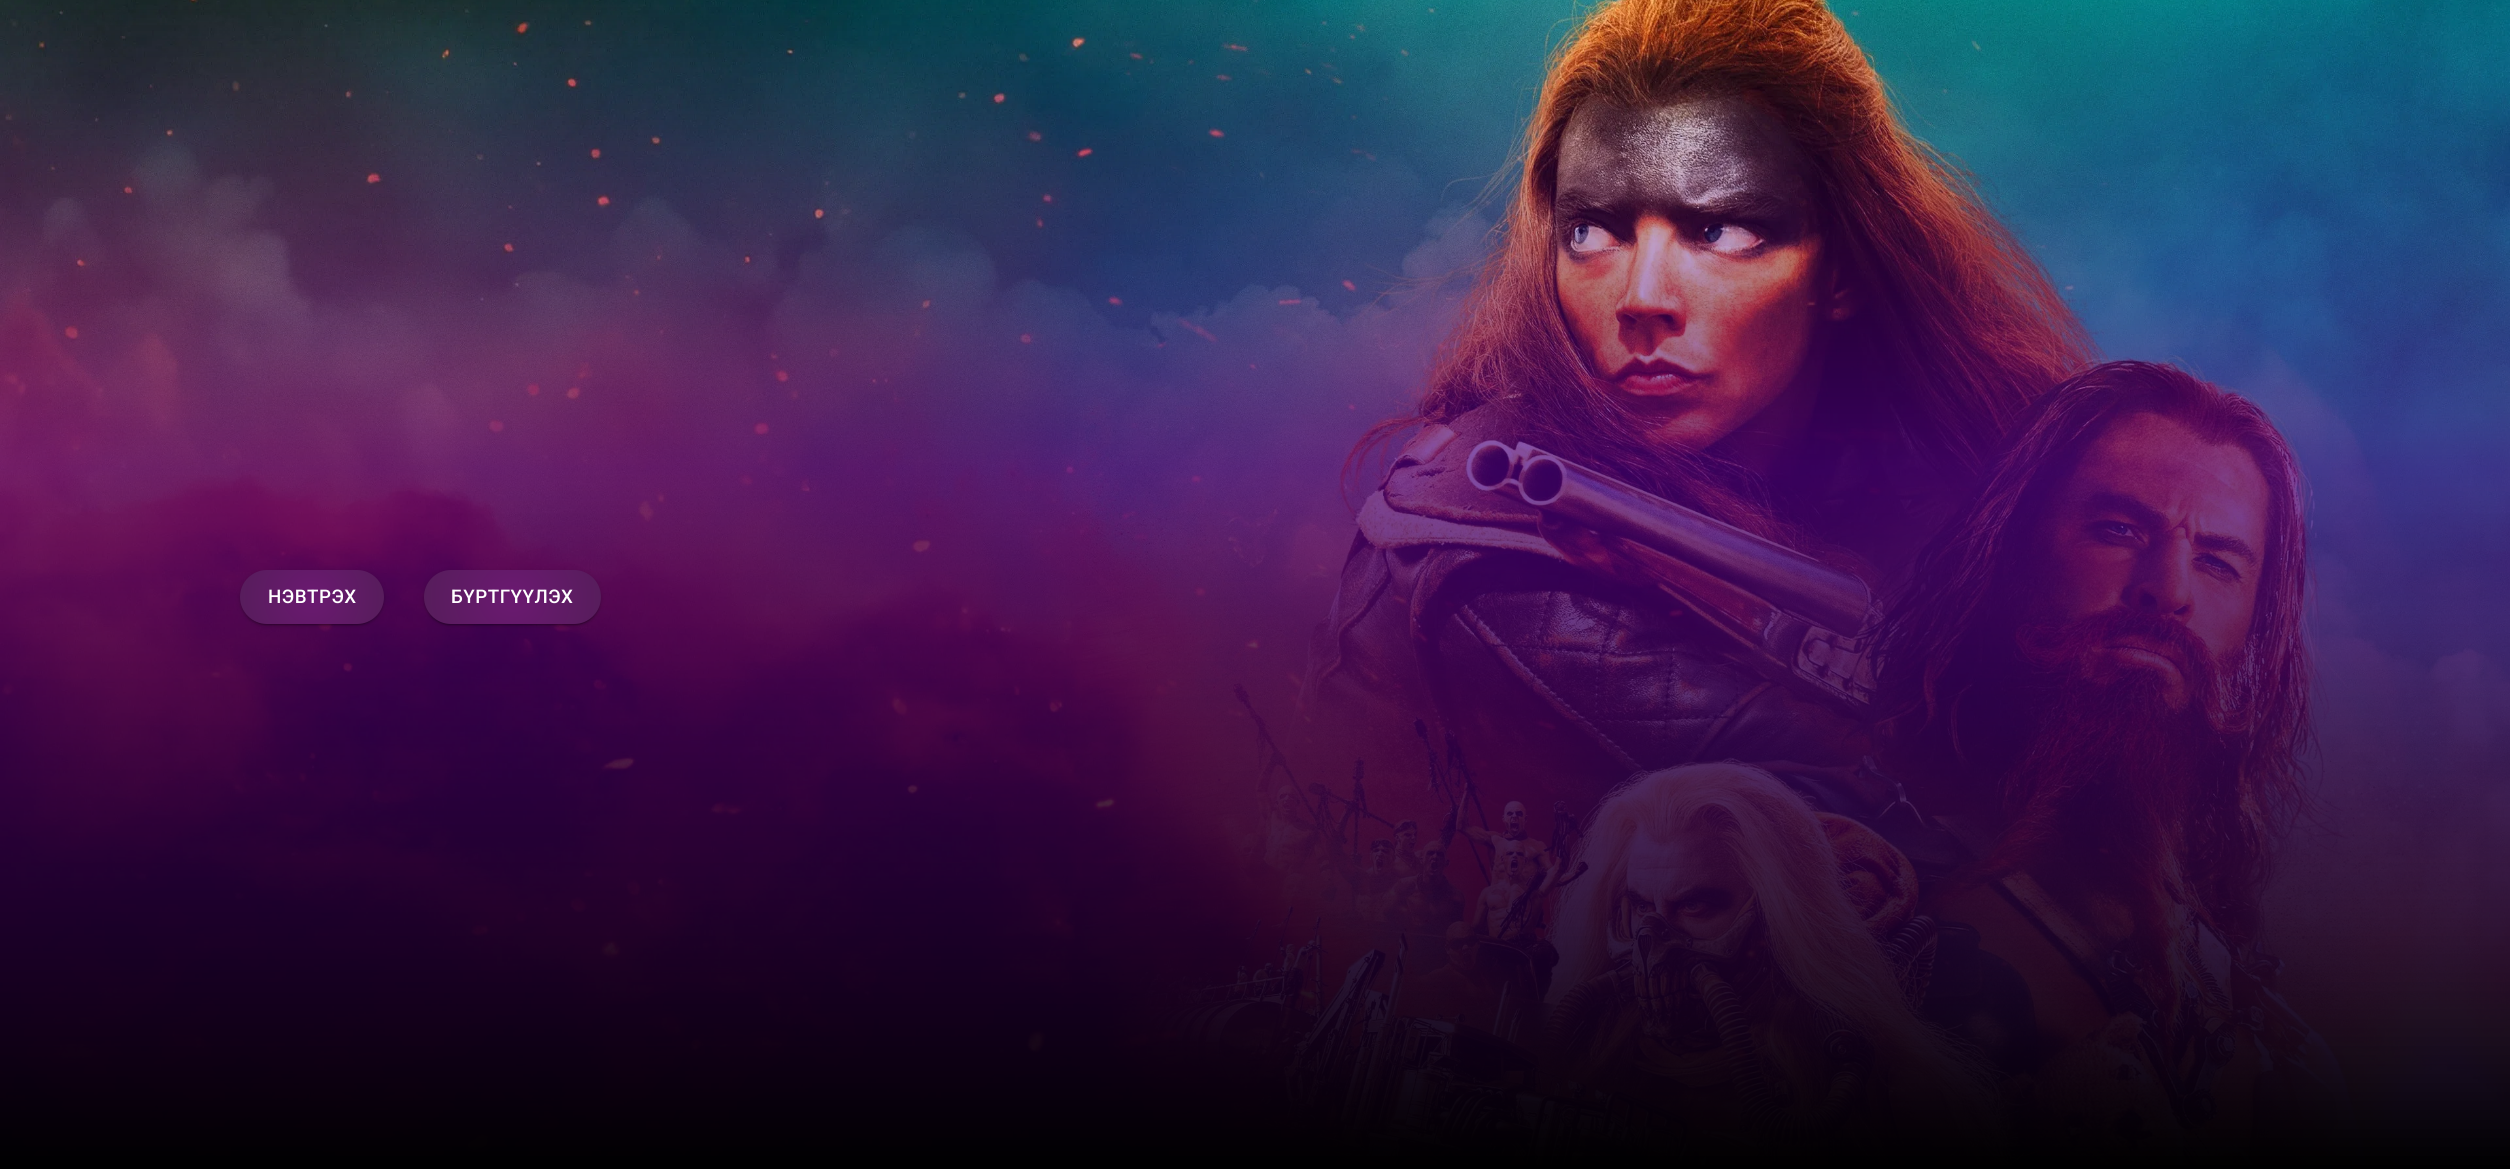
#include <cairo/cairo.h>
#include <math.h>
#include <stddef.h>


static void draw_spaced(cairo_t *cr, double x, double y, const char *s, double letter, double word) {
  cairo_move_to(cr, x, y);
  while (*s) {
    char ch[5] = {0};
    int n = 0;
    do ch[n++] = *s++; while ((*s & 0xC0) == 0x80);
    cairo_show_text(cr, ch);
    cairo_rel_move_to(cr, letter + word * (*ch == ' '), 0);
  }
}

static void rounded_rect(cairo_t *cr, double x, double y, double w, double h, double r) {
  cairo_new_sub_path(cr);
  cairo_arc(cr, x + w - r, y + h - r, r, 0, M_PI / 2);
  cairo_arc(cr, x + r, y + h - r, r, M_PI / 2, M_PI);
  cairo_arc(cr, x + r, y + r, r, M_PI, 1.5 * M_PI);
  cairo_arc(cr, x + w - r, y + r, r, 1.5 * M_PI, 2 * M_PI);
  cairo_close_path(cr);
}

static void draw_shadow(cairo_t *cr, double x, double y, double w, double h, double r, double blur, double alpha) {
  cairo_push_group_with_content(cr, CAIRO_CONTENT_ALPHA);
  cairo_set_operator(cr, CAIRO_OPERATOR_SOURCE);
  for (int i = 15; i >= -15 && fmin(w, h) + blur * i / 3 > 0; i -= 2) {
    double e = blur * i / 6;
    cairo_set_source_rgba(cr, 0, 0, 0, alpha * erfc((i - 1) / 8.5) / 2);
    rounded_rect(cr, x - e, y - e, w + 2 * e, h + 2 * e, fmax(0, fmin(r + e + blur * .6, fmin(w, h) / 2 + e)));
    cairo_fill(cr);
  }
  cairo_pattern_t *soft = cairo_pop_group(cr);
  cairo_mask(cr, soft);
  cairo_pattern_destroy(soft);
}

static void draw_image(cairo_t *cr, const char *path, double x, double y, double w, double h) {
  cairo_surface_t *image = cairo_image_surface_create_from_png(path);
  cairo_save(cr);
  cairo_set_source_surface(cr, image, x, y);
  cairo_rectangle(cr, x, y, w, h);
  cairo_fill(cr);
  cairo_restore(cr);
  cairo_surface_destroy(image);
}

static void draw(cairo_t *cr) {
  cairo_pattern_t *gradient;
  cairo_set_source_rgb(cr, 1, 1, 1);
  cairo_paint(cr);
  draw_image(cr, "images/1.png", 0, 0, 2510, 1169);
  cairo_set_source_rgb(cr, 0, 0, 0);
  draw_shadow(cr, 240, 571, 144, 54, 27, 3, 0.12);
  draw_shadow(cr, 240, 573, 144, 53, 26.5, 1, 0.14);
  draw_shadow(cr, 243, 576, 138, 49, 24.5, 0.5, 0.2);
  gradient = cairo_pattern_create_radial(312, 597, 0, 312, 597, 77);
  cairo_pattern_add_color_stop_rgba(gradient, 0, 107 / 255.0, 25 / 255.0, 113 / 255.0, 1);
  cairo_pattern_add_color_stop_rgba(gradient, 1, 86 / 255.0, 29 / 255.0, 91 / 255.0, 1);
  cairo_set_source(cr, gradient);
  cairo_pattern_destroy(gradient);
  rounded_rect(cr, 240, 570, 144, 54, 27);
  cairo_fill(cr);
  cairo_set_source_rgb(cr, 0, 0, 0);
  draw_shadow(cr, 424, 571, 177, 54, 27, 3, 0.12);
  draw_shadow(cr, 424, 573, 177, 53, 26.5, 1, 0.14);
  draw_shadow(cr, 426, 576, 173, 49, 24.5, 0.5, 0.2);
  gradient = cairo_pattern_create_radial(513, 597, 0, 513, 597, 93);
  cairo_pattern_add_color_stop_rgba(gradient, 0, 107 / 255.0, 25 / 255.0, 113 / 255.0, 1);
  cairo_pattern_add_color_stop_rgba(gradient, 1, 86 / 255.0, 29 / 255.0, 91 / 255.0, 1);
  cairo_set_source(cr, gradient);
  cairo_pattern_destroy(gradient);
  rounded_rect(cr, 424, 570, 177, 54, 27);
  cairo_fill(cr);
  cairo_select_font_face(cr, "Roboto Medium", CAIRO_FONT_SLANT_NORMAL, CAIRO_FONT_WEIGHT_NORMAL);
  cairo_set_font_size(cr, 18.75);
  cairo_set_source_rgb(cr, 1, 1, 1);
  draw_spaced(cr, 268, 603, "НЭВТРЭХ", 0.5, 0);
  draw_spaced(cr, 451, 603, "БҮРТГҮҮЛЭХ", 0.5, 0);
}

int main(void) {
  cairo_surface_t *surface = cairo_image_surface_create(CAIRO_FORMAT_RGB24, 2510, 1169);
  cairo_t *cr = cairo_create(surface);
  cairo_font_options_t *options = cairo_font_options_create();
  cairo_font_options_set_hint_metrics(options, CAIRO_HINT_METRICS_OFF);
  cairo_font_options_set_hint_style(options, CAIRO_HINT_STYLE_NONE);
  cairo_set_font_options(cr, options);
  cairo_set_miter_limit(cr, 4);
  draw(cr);
  cairo_surface_write_to_png(surface, "out.png");
  cairo_font_options_destroy(options);
  cairo_destroy(cr);
  cairo_surface_destroy(surface);
  return 0;
}
